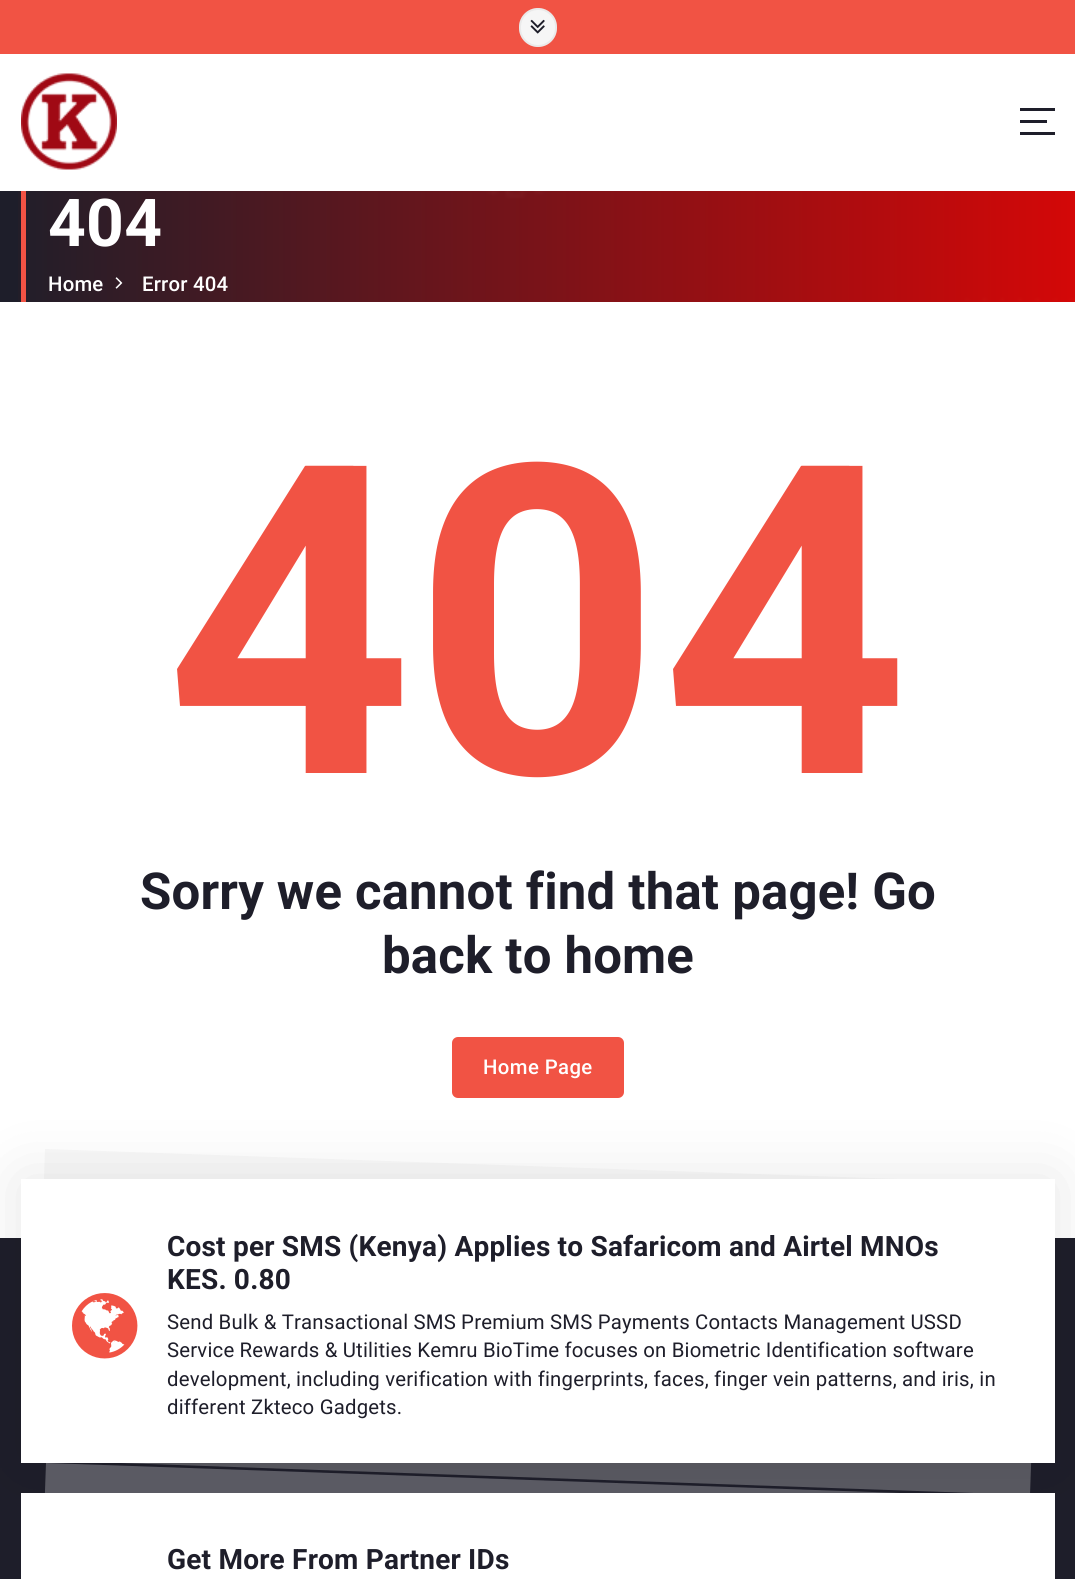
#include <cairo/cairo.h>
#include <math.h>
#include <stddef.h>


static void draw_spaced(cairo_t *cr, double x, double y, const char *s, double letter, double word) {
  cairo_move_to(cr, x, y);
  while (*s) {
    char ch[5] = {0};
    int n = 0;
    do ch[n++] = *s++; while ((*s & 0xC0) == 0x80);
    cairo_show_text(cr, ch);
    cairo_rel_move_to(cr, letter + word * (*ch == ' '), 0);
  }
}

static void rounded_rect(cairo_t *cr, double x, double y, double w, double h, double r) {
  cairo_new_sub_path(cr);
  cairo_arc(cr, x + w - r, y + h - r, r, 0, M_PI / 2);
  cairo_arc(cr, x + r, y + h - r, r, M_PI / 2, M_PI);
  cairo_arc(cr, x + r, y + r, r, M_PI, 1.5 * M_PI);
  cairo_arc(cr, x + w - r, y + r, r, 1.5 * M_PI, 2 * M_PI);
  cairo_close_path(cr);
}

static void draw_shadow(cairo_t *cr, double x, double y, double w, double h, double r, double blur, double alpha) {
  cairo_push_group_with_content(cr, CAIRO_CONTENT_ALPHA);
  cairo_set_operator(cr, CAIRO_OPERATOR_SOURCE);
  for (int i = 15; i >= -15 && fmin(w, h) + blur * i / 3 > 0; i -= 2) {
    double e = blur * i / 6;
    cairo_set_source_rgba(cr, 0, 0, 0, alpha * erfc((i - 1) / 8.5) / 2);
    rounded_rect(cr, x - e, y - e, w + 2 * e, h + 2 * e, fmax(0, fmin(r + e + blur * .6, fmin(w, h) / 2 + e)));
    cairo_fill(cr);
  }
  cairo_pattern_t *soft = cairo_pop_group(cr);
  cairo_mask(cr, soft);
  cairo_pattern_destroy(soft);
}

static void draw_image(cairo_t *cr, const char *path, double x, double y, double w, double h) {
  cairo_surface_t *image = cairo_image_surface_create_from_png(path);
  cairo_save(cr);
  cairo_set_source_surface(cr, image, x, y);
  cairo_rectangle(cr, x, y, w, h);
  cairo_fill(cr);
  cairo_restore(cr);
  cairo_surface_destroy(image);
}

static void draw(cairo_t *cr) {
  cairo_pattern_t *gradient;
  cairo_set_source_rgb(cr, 1, 1, 1);
  cairo_paint(cr);
  cairo_set_source_rgb(cr, 241 / 255.0, 83 / 255.0, 68 / 255.0);
  cairo_rectangle(cr, 0, 0, 1075, 54);
  cairo_fill(cr);
  cairo_set_source_rgb(cr, 246 / 255.0, 246 / 255.0, 246 / 255.0);
  rounded_rect(cr, 519, 8, 38, 39, 19);
  cairo_fill(cr);
  rounded_rect(cr, 520, 9, 36, 37, 18);
  cairo_set_source_rgba(cr, 189 / 255.0, 189 / 255.0, 189 / 255.0, 0.2);
  cairo_stroke(cr);
  draw_image(cr, "images/1.png", 530, 19, 15, 15);
  draw_image(cr, "images/2.png", 21, 73, 96, 97);
  cairo_set_source_rgb(cr, 30 / 255.0, 30 / 255.0, 42 / 255.0);
  cairo_rectangle(cr, 1020, 108, 35, 3);
  cairo_fill(cr);
  cairo_rectangle(cr, 1020, 120, 27, 3);
  cairo_fill(cr);
  cairo_rectangle(cr, 1020, 132, 35, 3);
  cairo_fill(cr);
  cairo_rectangle(cr, 0, 191, 1075, 111);
  cairo_fill(cr);
  draw_image(cr, "images/3.png", 479, 191, 596, 111);
  gradient = cairo_pattern_create_linear(0, 246, 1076, 246);
  cairo_pattern_add_color_stop_rgba(gradient, 0, 30 / 255.0, 30 / 255.0, 42 / 255.0, 0.95);
  cairo_pattern_add_color_stop_rgba(gradient, 1, 221 / 255.0, 6 / 255.0, 6 / 255.0, 0.95);
  cairo_set_source(cr, gradient);
  cairo_pattern_destroy(gradient);
  cairo_rectangle(cr, 18, 191, 1057, 111);
  cairo_fill(cr);
  cairo_set_source_rgb(cr, 241 / 255.0, 83 / 255.0, 68 / 255.0);
  cairo_rectangle(cr, 21, 191, 5, 111);
  cairo_fill(cr);
  draw_image(cr, "images/4.png", 115, 277, 8, 12);
  rounded_rect(cr, 453, 1038, 170, 59, 5);
  cairo_fill_preserve(cr);
  cairo_stroke(cr);
  cairo_set_source_rgb(cr, 30 / 255.0, 30 / 255.0, 42 / 255.0);
  cairo_rectangle(cr, 0, 1238, 1075, 341);
  cairo_fill(cr);
  cairo_set_source_rgba(cr, 231 / 255.0, 231 / 255.0, 231 / 255.0, 0.3);
  cairo_new_path(cr);
  cairo_move_to(cr, 45, 1149);
  cairo_line_to(cr, 1041, 1184);
  cairo_line_to(cr, 1030, 1495);
  cairo_line_to(cr, 34, 1460);
  cairo_close_path(cr);
  cairo_fill(cr);
  cairo_set_source_rgb(cr, 0, 0, 0);
  draw_shadow(cr, 21, 1179, 1034, 284, 0, 32, 0.1);
  cairo_set_source_rgb(cr, 1, 1, 1);
  cairo_rectangle(cr, 21, 1179, 1034, 284);
  cairo_fill(cr);
  draw_image(cr, "images/5.png", 72, 1293, 66, 66);
  cairo_set_source_rgb(cr, 90 / 255.0, 90 / 255.0, 99 / 255.0);
  cairo_new_path(cr);
  cairo_move_to(cr, 46, 1463);
  cairo_line_to(cr, 1042, 1498);
  cairo_line_to(cr, 1030, 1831);
  cairo_line_to(cr, 34, 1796);
  cairo_close_path(cr);
  cairo_fill(cr);
  cairo_set_source_rgb(cr, 1, 1, 1);
  cairo_rectangle(cr, 21, 1493, 1034, 86);
  cairo_fill(cr);
  cairo_select_font_face(cr, "Roboto", CAIRO_FONT_SLANT_NORMAL, CAIRO_FONT_WEIGHT_BOLD);
  cairo_set_font_size(cr, 66);
  draw_spaced(cr, 48, 246, "404", 0.2, 0);
  cairo_select_font_face(cr, "Roboto Medium", CAIRO_FONT_SLANT_NORMAL, CAIRO_FONT_WEIGHT_NORMAL);
  cairo_set_font_size(cr, 20.35);
  draw_spaced(cr, 48, 291, "Home", 0.2, 0);
  draw_spaced(cr, 142, 291, "Error 404", 0.2, 0);
  cairo_select_font_face(cr, "Roboto", CAIRO_FONT_SLANT_NORMAL, CAIRO_FONT_WEIGHT_BOLD);
  cairo_set_font_size(cr, 432);
  cairo_set_source_rgb(cr, 241 / 255.0, 83 / 255.0, 68 / 255.0);
  draw_spaced(cr, 165, 773, "404", 0.2, 0);
  cairo_set_font_size(cr, 50.9);
  cairo_set_source_rgb(cr, 30 / 255.0, 30 / 255.0, 42 / 255.0);
  draw_spaced(cr, 140, 909, "Sorry we cannot find that page! Go", 0.2, 0);
  draw_spaced(cr, 382, 973, "back to home", 0.2, 0);
  cairo_select_font_face(cr, "Roboto Medium", CAIRO_FONT_SLANT_NORMAL, CAIRO_FONT_WEIGHT_NORMAL);
  cairo_set_font_size(cr, 20.35);
  cairo_set_source_rgb(cr, 1, 1, 1);
  draw_spaced(cr, 483, 1074, "Home Page", 0.4, 0);
  cairo_select_font_face(cr, "Roboto", CAIRO_FONT_SLANT_NORMAL, CAIRO_FONT_WEIGHT_BOLD);
  cairo_set_font_size(cr, 28);
  cairo_set_source_rgb(cr, 30 / 255.0, 30 / 255.0, 42 / 255.0);
  draw_spaced(cr, 167, 1256, "Cost per SMS (Kenya) Applies to Safaricom and Airtel MNOs", 0.2, 0);
  draw_spaced(cr, 167, 1289, "KES. 0.80", 0.2, 0);
  cairo_select_font_face(cr, "Roboto", CAIRO_FONT_SLANT_NORMAL, CAIRO_FONT_WEIGHT_NORMAL);
  cairo_set_font_size(cr, 20.35);
  draw_spaced(cr, 167, 1329, "Send Bulk & Transactional SMS Premium SMS Payments Contacts Management USSD", 0.2, -0.1);
  draw_spaced(cr, 167, 1357, "Service Rewards & Utilities Kemru BioTime focuses on Biometric Identification software", 0.2, -0.1);
  draw_spaced(cr, 167, 1386, "development, including verification with fingerprints, faces, finger vein patterns, and iris, in", 0.2, 0);
  draw_spaced(cr, 167, 1414, "different Zkteco Gadgets.", 0.2, 0);
  cairo_select_font_face(cr, "Roboto", CAIRO_FONT_SLANT_NORMAL, CAIRO_FONT_WEIGHT_BOLD);
  cairo_set_font_size(cr, 28);
  draw_spaced(cr, 167, 1569, "Get More From Partner IDs", 0.2, 0);
}

int main(void) {
  cairo_surface_t *surface = cairo_image_surface_create(CAIRO_FORMAT_RGB24, 1075, 1579);
  cairo_t *cr = cairo_create(surface);
  cairo_font_options_t *options = cairo_font_options_create();
  cairo_font_options_set_hint_metrics(options, CAIRO_HINT_METRICS_OFF);
  cairo_font_options_set_hint_style(options, CAIRO_HINT_STYLE_NONE);
  cairo_set_font_options(cr, options);
  cairo_set_miter_limit(cr, 4);
  draw(cr);
  cairo_surface_write_to_png(surface, "out.png");
  cairo_font_options_destroy(options);
  cairo_destroy(cr);
  cairo_surface_destroy(surface);
  return 0;
}
